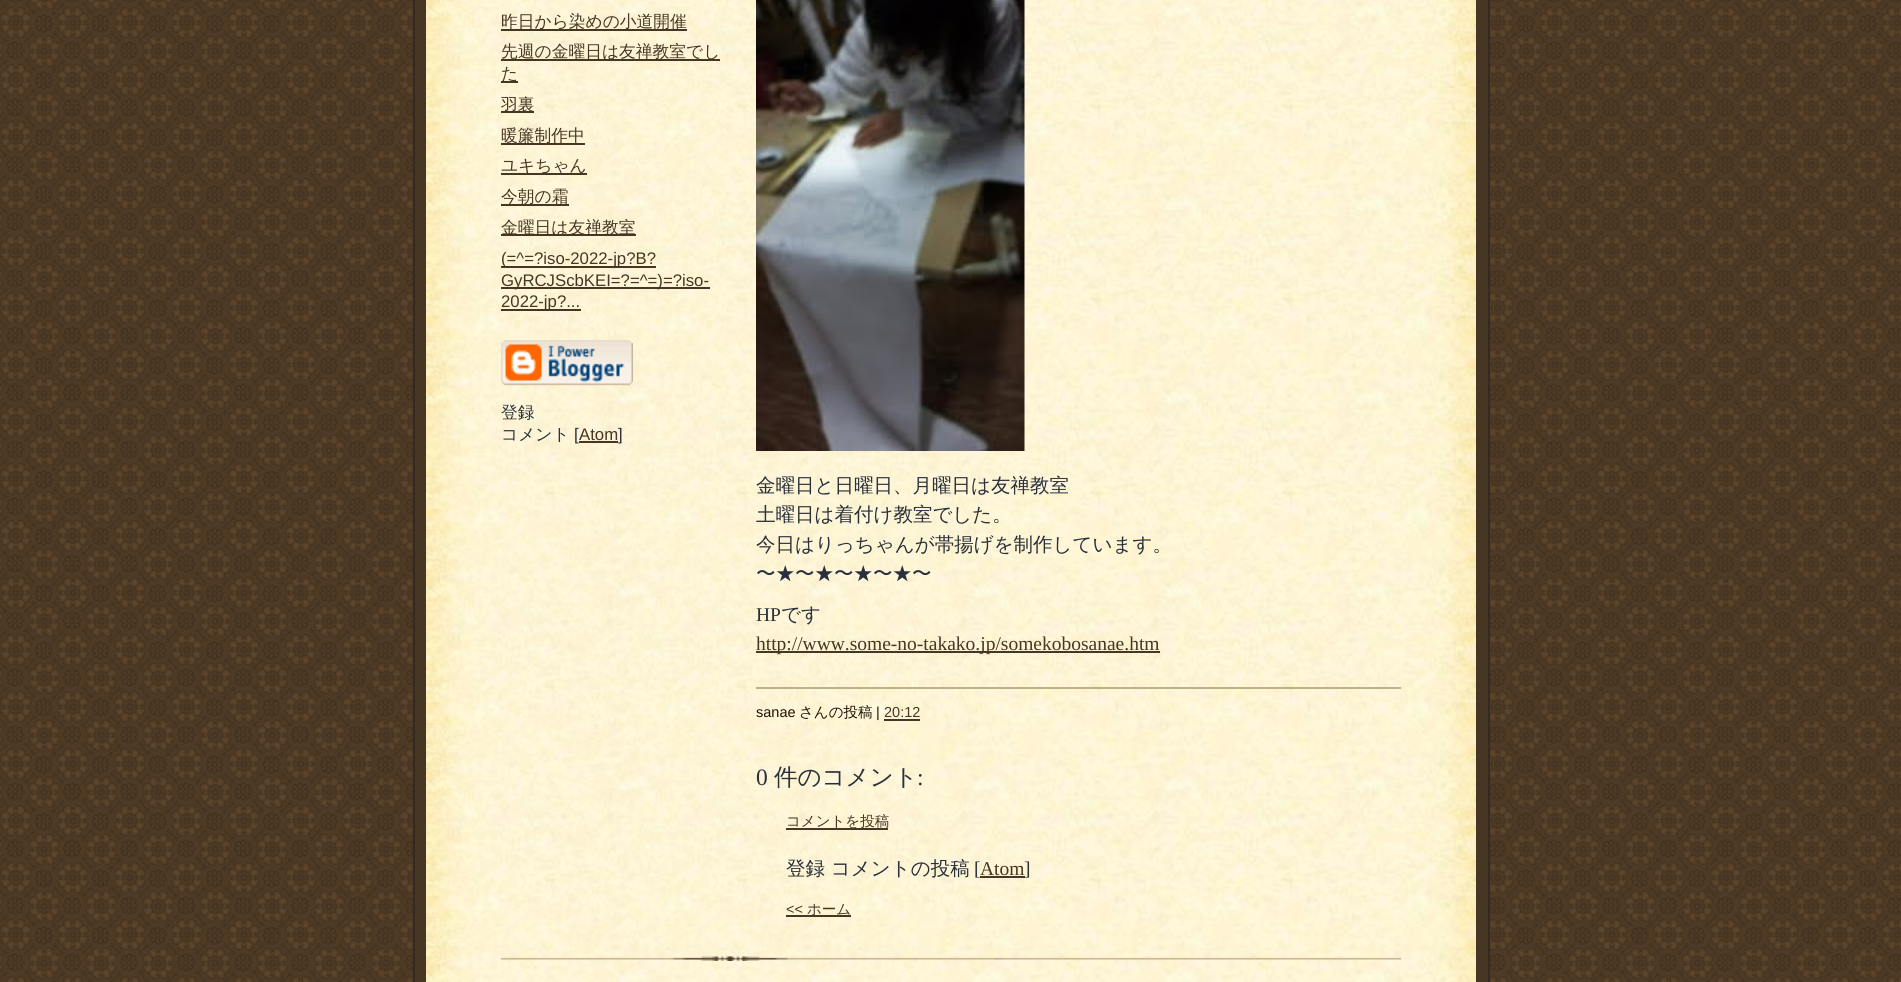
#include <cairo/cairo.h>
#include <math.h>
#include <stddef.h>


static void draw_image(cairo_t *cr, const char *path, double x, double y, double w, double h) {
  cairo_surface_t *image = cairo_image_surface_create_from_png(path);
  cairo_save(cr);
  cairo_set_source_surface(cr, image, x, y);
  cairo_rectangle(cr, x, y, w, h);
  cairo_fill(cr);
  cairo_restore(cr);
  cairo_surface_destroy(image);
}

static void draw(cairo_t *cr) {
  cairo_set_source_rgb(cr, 1, 1, 1);
  cairo_paint(cr);
  draw_image(cr, "images/1.png", 0, 0, 1901, 982);
  cairo_set_source_rgb(cr, 71 / 255.0, 54 / 255.0, 36 / 255.0);
  cairo_rectangle(cr, 415, 0, 1073, 982);
  cairo_fill(cr);
  cairo_set_source_rgb(cr, 51 / 255.0, 42 / 255.0, 36 / 255.0);
  cairo_rectangle(cr, 1488, 0, 2, 982);
  cairo_fill(cr);
  cairo_rectangle(cr, 413, 0, 2, 982);
  cairo_fill(cr);
  draw_image(cr, "images/2.png", 426, 0, 1050, 982);
  cairo_set_source_rgb(cr, 71 / 255.0, 54 / 255.0, 36 / 255.0);
  cairo_rectangle(cr, 501, 29, 186, 2);
  cairo_fill(cr);
  cairo_rectangle(cr, 501, 59, 219, 2);
  cairo_fill(cr);
  cairo_rectangle(cr, 501, 81, 17, 2);
  cairo_fill(cr);
  cairo_rectangle(cr, 501, 111, 33, 2);
  cairo_fill(cr);
  cairo_rectangle(cr, 501, 143, 84, 2);
  cairo_fill(cr);
  cairo_rectangle(cr, 501, 173, 86, 2);
  cairo_fill(cr);
  cairo_rectangle(cr, 501, 204, 68, 2);
  cairo_fill(cr);
  cairo_rectangle(cr, 501, 234, 135, 2);
  cairo_fill(cr);
  cairo_rectangle(cr, 501, 266, 155, 2);
  cairo_fill(cr);
  cairo_rectangle(cr, 501, 287, 209, 2);
  cairo_fill(cr);
  cairo_rectangle(cr, 501, 309, 80, 2);
  cairo_fill(cr);
  draw_image(cr, "images/3.png", 501, 340, 132, 46);
  cairo_rectangle(cr, 579, 441, 39, 2);
  cairo_fill(cr);
  draw_image(cr, "images/4.png", 756, 0, 269, 451);
  cairo_rectangle(cr, 756, 651, 404, 2);
  cairo_fill(cr);
  cairo_set_source_rgb(cr, 191 / 255.0, 177 / 255.0, 134 / 255.0);
  cairo_rectangle(cr, 756, 687, 645, 2);
  cairo_fill(cr);
  cairo_set_source_rgb(cr, 71 / 255.0, 54 / 255.0, 36 / 255.0);
  cairo_rectangle(cr, 884, 719, 36, 2);
  cairo_fill(cr);
  cairo_rectangle(cr, 786, 828, 102, 2);
  cairo_fill(cr);
  cairo_rectangle(cr, 980, 876, 45, 2);
  cairo_fill(cr);
  cairo_rectangle(cr, 786, 915, 65, 2);
  cairo_fill(cr);
  draw_image(cr, "images/5.png", 501, 956, 900, 5);
  cairo_select_font_face(cr, "WenQuanYi Zen Hei Medium", CAIRO_FONT_SLANT_NORMAL, CAIRO_FONT_WEIGHT_NORMAL);
  cairo_set_font_size(cr, 16.75);
  cairo_move_to(cr, 501, 27);
  cairo_show_text(cr, "昨日から染めの小道開催");
  cairo_move_to(cr, 501, 57);
  cairo_show_text(cr, "先週の金曜日は友禅教室でし");
  cairo_move_to(cr, 501, 79);
  cairo_show_text(cr, "た");
  cairo_move_to(cr, 501, 110);
  cairo_show_text(cr, "羽裏");
  cairo_move_to(cr, 501, 141);
  cairo_show_text(cr, "暖簾制作中");
  cairo_move_to(cr, 501, 171);
  cairo_show_text(cr, "ユキちゃん");
  cairo_move_to(cr, 501, 202);
  cairo_show_text(cr, "今朝の霜");
  cairo_move_to(cr, 501, 233);
  cairo_show_text(cr, "金曜日は友禅教室");
  cairo_select_font_face(cr, "Liberation Sans", CAIRO_FONT_SLANT_NORMAL, CAIRO_FONT_WEIGHT_NORMAL);
  cairo_move_to(cr, 501, 264);
  cairo_show_text(cr, "(=^=?iso-2022-jp?B?");
  cairo_move_to(cr, 501, 286);
  cairo_show_text(cr, "GyRCJScbKEI=?=^=)=?iso-");
  cairo_move_to(cr, 501, 307);
  cairo_show_text(cr, "2022-jp?...");
  cairo_select_font_face(cr, "WenQuanYi Zen Hei Medium", CAIRO_FONT_SLANT_NORMAL, CAIRO_FONT_WEIGHT_NORMAL);
  cairo_set_source_rgb(cr, 41 / 255.0, 48 / 255.0, 59 / 255.0);
  cairo_move_to(cr, 501, 418);
  cairo_show_text(cr, "登録");
  cairo_move_to(cr, 501, 440);
  cairo_show_text(cr, "コメント");
  cairo_select_font_face(cr, "Liberation Sans", CAIRO_FONT_SLANT_NORMAL, CAIRO_FONT_WEIGHT_NORMAL);
  cairo_move_to(cr, 574, 440);
  cairo_show_text(cr, "[");
  cairo_set_source_rgb(cr, 71 / 255.0, 54 / 255.0, 36 / 255.0);
  cairo_move_to(cr, 579, 440);
  cairo_show_text(cr, "Atom");
  cairo_set_source_rgb(cr, 41 / 255.0, 48 / 255.0, 59 / 255.0);
  cairo_move_to(cr, 618, 440);
  cairo_show_text(cr, "]");
  cairo_select_font_face(cr, "WenQuanYi Zen Hei Medium", CAIRO_FONT_SLANT_NORMAL, CAIRO_FONT_WEIGHT_NORMAL);
  cairo_set_font_size(cr, 19.5);
  cairo_move_to(cr, 756, 492);
  cairo_show_text(cr, "金曜日と日曜日、月曜日は友禅教室");
  cairo_move_to(cr, 756, 521);
  cairo_show_text(cr, "土曜日は着付け教室でした。");
  cairo_move_to(cr, 756, 551);
  cairo_show_text(cr, "今日はりっちゃんが帯揚げを制作しています。");
  cairo_move_to(cr, 756, 580);
  cairo_show_text(cr, "〜★〜★〜★〜★〜");
  cairo_select_font_face(cr, "Liberation Serif", CAIRO_FONT_SLANT_NORMAL, CAIRO_FONT_WEIGHT_NORMAL);
  cairo_move_to(cr, 756, 621);
  cairo_show_text(cr, "HP");
  cairo_select_font_face(cr, "WenQuanYi Zen Hei Medium", CAIRO_FONT_SLANT_NORMAL, CAIRO_FONT_WEIGHT_NORMAL);
  cairo_move_to(cr, 781, 621);
  cairo_show_text(cr, "です");
  cairo_select_font_face(cr, "Liberation Serif", CAIRO_FONT_SLANT_NORMAL, CAIRO_FONT_WEIGHT_NORMAL);
  cairo_set_source_rgb(cr, 71 / 255.0, 54 / 255.0, 36 / 255.0);
  cairo_move_to(cr, 756, 650);
  cairo_show_text(cr, "http://www.some-no-takako.jp/somekobosanae.htm");
  cairo_select_font_face(cr, "Liberation Sans", CAIRO_FONT_SLANT_NORMAL, CAIRO_FONT_WEIGHT_NORMAL);
  cairo_set_font_size(cr, 14.5);
  cairo_set_source_rgb(cr, 33 / 255.0, 17 / 255.0, 4 / 255.0);
  cairo_move_to(cr, 756, 717);
  cairo_show_text(cr, "sanae");
  cairo_select_font_face(cr, "WenQuanYi Zen Hei Medium", CAIRO_FONT_SLANT_NORMAL, CAIRO_FONT_WEIGHT_NORMAL);
  cairo_move_to(cr, 799, 717);
  cairo_show_text(cr, "さんの投稿");
  cairo_select_font_face(cr, "Liberation Sans", CAIRO_FONT_SLANT_NORMAL, CAIRO_FONT_WEIGHT_NORMAL);
  cairo_move_to(cr, 876, 717);
  cairo_show_text(cr, "|");
  cairo_set_source_rgb(cr, 71 / 255.0, 54 / 255.0, 36 / 255.0);
  cairo_move_to(cr, 884, 717);
  cairo_show_text(cr, "20:12");
  cairo_select_font_face(cr, "Liberation Serif", CAIRO_FONT_SLANT_NORMAL, CAIRO_FONT_WEIGHT_NORMAL);
  cairo_set_font_size(cr, 23.5);
  cairo_set_source_rgb(cr, 41 / 255.0, 48 / 255.0, 59 / 255.0);
  cairo_move_to(cr, 756, 785);
  cairo_show_text(cr, "0");
  cairo_select_font_face(cr, "WenQuanYi Zen Hei Medium", CAIRO_FONT_SLANT_NORMAL, CAIRO_FONT_WEIGHT_NORMAL);
  cairo_move_to(cr, 774, 785);
  cairo_show_text(cr, "件のコメント");
  cairo_select_font_face(cr, "Liberation Serif", CAIRO_FONT_SLANT_NORMAL, CAIRO_FONT_WEIGHT_NORMAL);
  cairo_move_to(cr, 917, 785);
  cairo_show_text(cr, ":");
  cairo_select_font_face(cr, "WenQuanYi Zen Hei Medium", CAIRO_FONT_SLANT_NORMAL, CAIRO_FONT_WEIGHT_NORMAL);
  cairo_set_font_size(cr, 14.5);
  cairo_set_source_rgb(cr, 71 / 255.0, 54 / 255.0, 36 / 255.0);
  cairo_move_to(cr, 786, 826);
  cairo_show_text(cr, "コメントを投稿");
  cairo_set_font_size(cr, 19.5);
  cairo_set_source_rgb(cr, 41 / 255.0, 48 / 255.0, 59 / 255.0);
  cairo_move_to(cr, 786, 875);
  cairo_show_text(cr, "登録 コメントの投稿");
  cairo_select_font_face(cr, "Liberation Serif", CAIRO_FONT_SLANT_NORMAL, CAIRO_FONT_WEIGHT_NORMAL);
  cairo_move_to(cr, 974, 875);
  cairo_show_text(cr, "[");
  cairo_set_source_rgb(cr, 71 / 255.0, 54 / 255.0, 36 / 255.0);
  cairo_move_to(cr, 980, 875);
  cairo_show_text(cr, "Atom");
  cairo_set_source_rgb(cr, 41 / 255.0, 48 / 255.0, 59 / 255.0);
  cairo_move_to(cr, 1024, 875);
  cairo_show_text(cr, "]");
  cairo_select_font_face(cr, "Liberation Sans", CAIRO_FONT_SLANT_NORMAL, CAIRO_FONT_WEIGHT_NORMAL);
  cairo_set_font_size(cr, 14.5);
  cairo_set_source_rgb(cr, 71 / 255.0, 54 / 255.0, 36 / 255.0);
  cairo_move_to(cr, 786, 914);
  cairo_show_text(cr, "<<");
  cairo_select_font_face(cr, "WenQuanYi Zen Hei Medium", CAIRO_FONT_SLANT_NORMAL, CAIRO_FONT_WEIGHT_NORMAL);
  cairo_move_to(cr, 807, 914);
  cairo_show_text(cr, "ホーム");
}

int main(void) {
  cairo_surface_t *surface = cairo_image_surface_create(CAIRO_FORMAT_RGB24, 1901, 982);
  cairo_t *cr = cairo_create(surface);
  cairo_font_options_t *options = cairo_font_options_create();
  cairo_font_options_set_hint_metrics(options, CAIRO_HINT_METRICS_OFF);
  cairo_font_options_set_hint_style(options, CAIRO_HINT_STYLE_NONE);
  cairo_set_font_options(cr, options);
  cairo_set_miter_limit(cr, 4);
  draw(cr);
  cairo_surface_write_to_png(surface, "out.png");
  cairo_font_options_destroy(options);
  cairo_destroy(cr);
  cairo_surface_destroy(surface);
  return 0;
}
